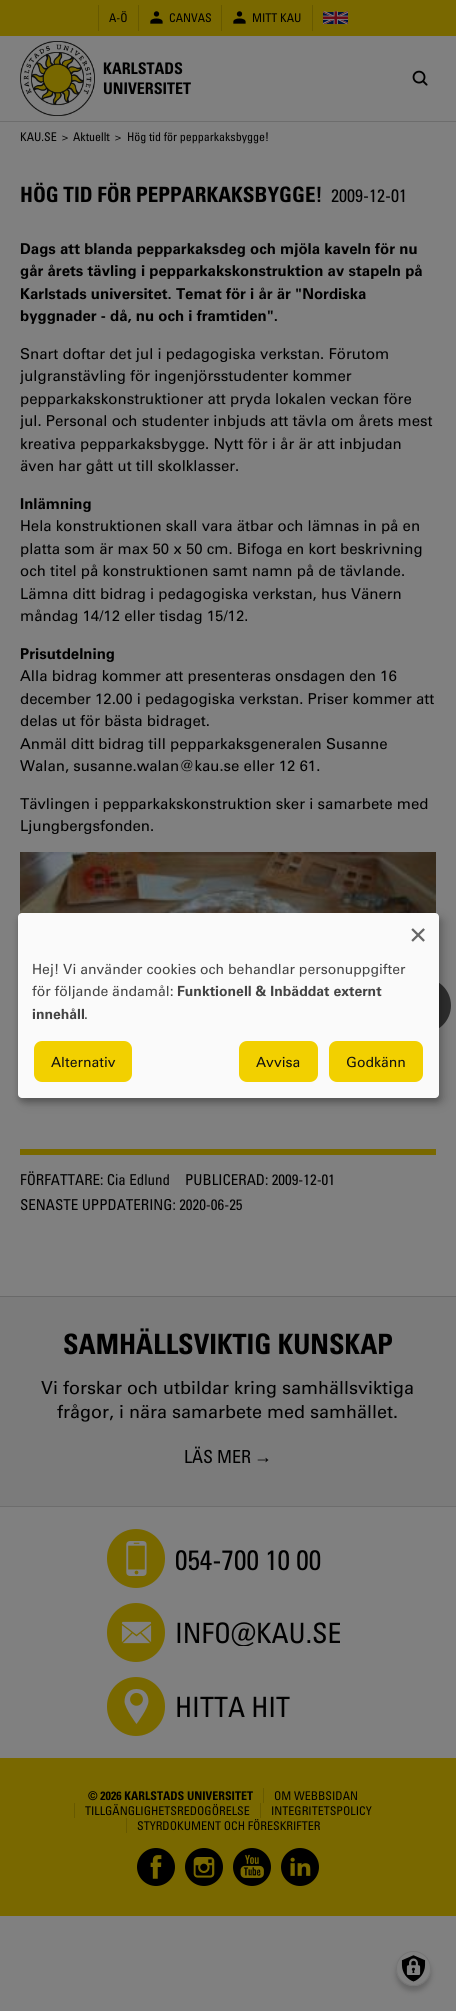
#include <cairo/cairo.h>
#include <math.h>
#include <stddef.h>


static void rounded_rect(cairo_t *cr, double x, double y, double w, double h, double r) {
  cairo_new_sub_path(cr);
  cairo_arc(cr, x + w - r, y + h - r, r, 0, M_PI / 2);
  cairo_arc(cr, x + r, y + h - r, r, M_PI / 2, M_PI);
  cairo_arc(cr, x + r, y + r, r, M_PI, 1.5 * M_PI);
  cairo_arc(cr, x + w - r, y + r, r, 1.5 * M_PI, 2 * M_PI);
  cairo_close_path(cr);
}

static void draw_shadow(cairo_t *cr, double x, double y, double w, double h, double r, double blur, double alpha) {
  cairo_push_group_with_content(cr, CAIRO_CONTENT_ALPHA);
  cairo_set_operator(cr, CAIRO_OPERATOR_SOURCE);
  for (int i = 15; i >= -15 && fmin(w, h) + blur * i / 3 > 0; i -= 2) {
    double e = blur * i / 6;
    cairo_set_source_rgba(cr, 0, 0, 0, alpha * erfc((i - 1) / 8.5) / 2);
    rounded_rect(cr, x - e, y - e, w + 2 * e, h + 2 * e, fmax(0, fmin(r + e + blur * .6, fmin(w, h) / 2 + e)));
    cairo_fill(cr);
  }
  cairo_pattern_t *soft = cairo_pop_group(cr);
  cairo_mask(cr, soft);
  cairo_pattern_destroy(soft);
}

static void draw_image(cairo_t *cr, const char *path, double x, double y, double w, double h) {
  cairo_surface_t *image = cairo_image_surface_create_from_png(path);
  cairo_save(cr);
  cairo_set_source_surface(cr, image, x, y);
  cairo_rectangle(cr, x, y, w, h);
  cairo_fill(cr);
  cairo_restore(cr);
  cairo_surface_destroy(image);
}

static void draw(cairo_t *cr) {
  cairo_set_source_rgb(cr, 128 / 255.0, 128 / 255.0, 128 / 255.0);
  cairo_paint(cr);
  cairo_set_source_rgb(cr, 121 / 255.0, 104 / 255.0, 0);
  cairo_rectangle(cr, 0, 0, 456, 36);
  cairo_fill(cr);
  cairo_set_source_rgb(cr, 103 / 255.0, 89 / 255.0, 0);
  cairo_rectangle(cr, 98, 5, 1, 26);
  cairo_fill(cr);
  cairo_rectangle(cr, 138, 5, 1, 26);
  cairo_fill(cr);
  draw_image(cr, "images/1.png", 150, 11, 13, 13);
  cairo_rectangle(cr, 221, 5, 1, 26);
  cairo_fill(cr);
  draw_image(cr, "images/1.png", 233, 11, 13, 13);
  cairo_rectangle(cr, 312, 5, 1, 26);
  cairo_fill(cr);
  draw_image(cr, "images/2.png", 323, 11, 25, 14);
  draw_image(cr, "images/3.png", 20, 41, 75, 75);
  draw_image(cr, "images/4.png", 412, 70, 16, 16);
  cairo_set_source_rgb(cr, 109 / 255.0, 109 / 255.0, 109 / 255.0);
  cairo_rectangle(cr, 0, 121, 456, 1);
  cairo_fill(cr);
  draw_image(cr, "images/5.png", 20, 852, 416, 62);
  cairo_set_source_rgb(cr, 121 / 255.0, 104 / 255.0, 0);
  cairo_rectangle(cr, 20, 1149, 416, 6);
  cairo_fill(cr);
  cairo_set_source_rgba(cr, 0, 0, 0, 0.64);
  cairo_arc(cr, 423.5, 1005.5, 27.5, 0, 2 * M_PI);
  cairo_fill(cr);
  cairo_set_source_rgb(cr, 123 / 255.0, 123 / 255.0, 123 / 255.0);
  cairo_rectangle(cr, 0, 1297, 456, 209);
  cairo_fill(cr);
  cairo_set_source_rgb(cr, 105 / 255.0, 105 / 255.0, 105 / 255.0);
  cairo_rectangle(cr, 0, 1296, 456, 1);
  cairo_fill(cr);
  cairo_set_source_rgb(cr, 109 / 255.0, 109 / 255.0, 109 / 255.0);
  cairo_rectangle(cr, 0, 1506, 456, 1);
  cairo_fill(cr);
  cairo_set_source_rgb(cr, 121 / 255.0, 104 / 255.0, 0);
  rounded_rect(cr, 107, 1529, 58, 59, 29);
  cairo_fill(cr);
  draw_image(cr, "images/6.png", 126, 1541, 21, 35);
  rounded_rect(cr, 107, 1603, 58, 59, 29);
  cairo_fill(cr);
  draw_image(cr, "images/7.png", 121, 1621, 31, 23);
  rounded_rect(cr, 107, 1677, 58, 59, 29);
  cairo_fill(cr);
  draw_image(cr, "images/8.png", 124, 1689, 25, 35);
  cairo_rectangle(cr, 0, 1758, 456, 158);
  cairo_fill(cr);
  cairo_set_source_rgb(cr, 103 / 255.0, 89 / 255.0, 0);
  cairo_rectangle(cr, 263, 1788, 1, 15);
  cairo_fill(cr);
  cairo_rectangle(cr, 74, 1803, 1, 15);
  cairo_fill(cr);
  cairo_rectangle(cr, 260, 1803, 1, 15);
  cairo_fill(cr);
  cairo_rectangle(cr, 126, 1818, 1, 15);
  cairo_fill(cr);
  draw_image(cr, "images/9.png", 137, 1848, 38, 38);
  draw_image(cr, "images/10.png", 185, 1848, 38, 38);
  draw_image(cr, "images/11.png", 233, 1848, 38, 38);
  draw_image(cr, "images/12.png", 281, 1848, 38, 38);
  cairo_set_source_rgb(cr, 0, 0, 0);
  draw_shadow(cr, 23, 918, 421, 185, 4, 5, 0.19);
  draw_shadow(cr, 18, 917, 421, 185, 4, 3, 0.2);
  cairo_set_source_rgb(cr, 250 / 255.0, 250 / 255.0, 250 / 255.0);
  rounded_rect(cr, 18, 913, 421, 185, 4);
  cairo_fill(cr);
  cairo_set_source_rgb(cr, 242 / 255.0, 208 / 255.0, 0);
  rounded_rect(cr, 33, 1040, 100, 43, 9);
  cairo_fill_preserve(cr);
  cairo_set_source_rgb(cr, 250 / 255.0, 250 / 255.0, 250 / 255.0);
  cairo_stroke(cr);
  cairo_set_source_rgb(cr, 242 / 255.0, 208 / 255.0, 0);
  rounded_rect(cr, 238, 1040, 81, 43, 9);
  cairo_fill_preserve(cr);
  cairo_set_source_rgb(cr, 250 / 255.0, 250 / 255.0, 250 / 255.0);
  cairo_stroke(cr);
  cairo_set_source_rgb(cr, 242 / 255.0, 208 / 255.0, 0);
  rounded_rect(cr, 328, 1040, 96, 43, 9);
  cairo_fill_preserve(cr);
  cairo_set_source_rgb(cr, 250 / 255.0, 250 / 255.0, 250 / 255.0);
  cairo_stroke(cr);
  cairo_set_source_rgb(cr, 0, 0, 0);
  draw_shadow(cr, 396, 1956, 35, 35, 17.5, 2.5, 0.2);
  cairo_set_source_rgb(cr, 128 / 255.0, 128 / 255.0, 128 / 255.0);
  cairo_arc(cr, 413.5, 1968.5, 17.5, 0, 2 * M_PI);
  cairo_fill(cr);
  draw_image(cr, "images/13.png", 401, 1955, 25, 27);
  cairo_arc(cr, 413.5, 1968.5, 17, 0, 2 * M_PI);
  cairo_set_source_rgb(cr, 117 / 255.0, 117 / 255.0, 117 / 255.0);
  cairo_set_line_width(cr, 1);
  cairo_stroke(cr);
  cairo_select_font_face(cr, "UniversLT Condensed", CAIRO_FONT_SLANT_NORMAL, CAIRO_FONT_WEIGHT_NORMAL);
  cairo_set_font_size(cr, 12);
  cairo_set_source_rgb(cr, 0, 0, 0);
  cairo_move_to(cr, 109, 22);
  cairo_show_text(cr, "A-Ö");
  cairo_move_to(cr, 169, 22);
  cairo_show_text(cr, "CANVAS");
  cairo_move_to(cr, 252, 22);
  cairo_show_text(cr, "MITT KAU");
  cairo_select_font_face(cr, "UniversLT Condensed", CAIRO_FONT_SLANT_NORMAL, CAIRO_FONT_WEIGHT_BOLD);
  cairo_set_font_size(cr, 16);
  cairo_move_to(cr, 103, 74);
  cairo_show_text(cr, "KARLSTADS");
  cairo_move_to(cr, 103, 94);
  cairo_show_text(cr, "UNIVERSITET");
  cairo_select_font_face(cr, "UniversLT Condensed", CAIRO_FONT_SLANT_NORMAL, CAIRO_FONT_WEIGHT_NORMAL);
  cairo_set_font_size(cr, 12);
  cairo_move_to(cr, 20, 141);
  cairo_show_text(cr, "KAU.SE");
  cairo_move_to(cr, 62, 141);
  cairo_show_text(cr, ">");
  cairo_move_to(cr, 73, 141);
  cairo_show_text(cr, "Aktuellt");
  cairo_move_to(cr, 115, 141);
  cairo_show_text(cr, ">");
  cairo_move_to(cr, 127, 141);
  cairo_show_text(cr, "Hög tid för pepparkaksbygge!");
  cairo_select_font_face(cr, "UniversLT Condensed", CAIRO_FONT_SLANT_NORMAL, CAIRO_FONT_WEIGHT_BOLD);
  cairo_set_font_size(cr, 21.1);
  cairo_move_to(cr, 20, 202);
  cairo_show_text(cr, "HÖG TID FÖR PEPPARKAKSBYGGE!");
  cairo_select_font_face(cr, "UniversLT Condensed", CAIRO_FONT_SLANT_NORMAL, CAIRO_FONT_WEIGHT_NORMAL);
  cairo_set_font_size(cr, 18);
  cairo_move_to(cr, 331, 202);
  cairo_show_text(cr, "2009-12-01");
  cairo_select_font_face(cr, "Univers", CAIRO_FONT_SLANT_NORMAL, CAIRO_FONT_WEIGHT_BOLD);
  cairo_set_font_size(cr, 15);
  cairo_move_to(cr, 20, 254);
  cairo_show_text(cr, "Dags att blanda pepparkaksdeg och mjöla kaveln för nu");
  cairo_move_to(cr, 20, 276);
  cairo_show_text(cr, "går årets tävling i pepparkakskonstruktion av stapeln på");
  cairo_move_to(cr, 20, 299);
  cairo_show_text(cr, "Karlstads universitet. Temat för i år är \"Nordiska");
  cairo_move_to(cr, 20, 321);
  cairo_show_text(cr, "byggnader - då, nu och i framtiden\".");
  cairo_select_font_face(cr, "Univers", CAIRO_FONT_SLANT_NORMAL, CAIRO_FONT_WEIGHT_NORMAL);
  cairo_move_to(cr, 20, 359);
  cairo_show_text(cr, "Snart doftar det jul i pedagogiska verkstan. Förutom");
  cairo_move_to(cr, 20, 381);
  cairo_show_text(cr, "julgranstävling för ingenjörsstudenter kommer");
  cairo_move_to(cr, 20, 404);
  cairo_show_text(cr, "pepparkakskonstruktioner att pryda lokalen veckan före");
  cairo_move_to(cr, 20, 426);
  cairo_show_text(cr, "jul. Personal och studenter inbjuds att tävla om årets mest");
  cairo_move_to(cr, 20, 449);
  cairo_show_text(cr, "kreativa pepparkaksbygge. Nytt för i år är att inbjudan");
  cairo_move_to(cr, 20, 471);
  cairo_show_text(cr, "även har gått ut till skolklasser.");
  cairo_select_font_face(cr, "Univers", CAIRO_FONT_SLANT_NORMAL, CAIRO_FONT_WEIGHT_BOLD);
  cairo_move_to(cr, 20, 509);
  cairo_show_text(cr, "Inlämning");
  cairo_select_font_face(cr, "Univers", CAIRO_FONT_SLANT_NORMAL, CAIRO_FONT_WEIGHT_NORMAL);
  cairo_move_to(cr, 20, 531);
  cairo_show_text(cr, "Hela konstruktionen skall vara ätbar och lämnas in på en");
  cairo_move_to(cr, 20, 554);
  cairo_show_text(cr, "platta som är max 50 x 50 cm. Bifoga en kort beskrivning");
  cairo_move_to(cr, 20, 576);
  cairo_show_text(cr, "och titel på konstruktionen samt namn på de tävlande.");
  cairo_move_to(cr, 20, 599);
  cairo_show_text(cr, "Lämna ditt bidrag i pedagogiska verkstan, hus Vänern");
  cairo_move_to(cr, 20, 621);
  cairo_show_text(cr, "måndag 14/12 eller tisdag 15/12.");
  cairo_select_font_face(cr, "Univers", CAIRO_FONT_SLANT_NORMAL, CAIRO_FONT_WEIGHT_BOLD);
  cairo_move_to(cr, 20, 659);
  cairo_show_text(cr, "Prisutdelning");
  cairo_select_font_face(cr, "Univers", CAIRO_FONT_SLANT_NORMAL, CAIRO_FONT_WEIGHT_NORMAL);
  cairo_move_to(cr, 20, 681);
  cairo_show_text(cr, "Alla bidrag kommer att presenteras onsdagen den 16");
  cairo_move_to(cr, 20, 704);
  cairo_show_text(cr, "december 12.00 i pedagogiska verkstan. Priser kommer att");
  cairo_move_to(cr, 20, 726);
  cairo_show_text(cr, "delas ut för bästa bidraget.");
  cairo_move_to(cr, 20, 749);
  cairo_show_text(cr, "Anmäl ditt bidrag till pepparkaksgeneralen Susanne");
  cairo_move_to(cr, 20, 771);
  cairo_show_text(cr, "Walan, susanne.walan@kau.se eller 12 61.");
  cairo_move_to(cr, 20, 809);
  cairo_show_text(cr, "Tävlingen i pepparkakskonstruktion sker i samarbete med");
  cairo_move_to(cr, 20, 831);
  cairo_show_text(cr, "Ljungbergsfonden.");
  cairo_select_font_face(cr, "UniversLT Condensed", CAIRO_FONT_SLANT_NORMAL, CAIRO_FONT_WEIGHT_NORMAL);
  cairo_move_to(cr, 20, 1185);
  cairo_show_text(cr, "FÖRFATTARE: Cia Edlund");
  cairo_move_to(cr, 185, 1185);
  cairo_show_text(cr, "PUBLICERAD: 2009-12-01");
  cairo_move_to(cr, 20, 1210);
  cairo_show_text(cr, "SENASTE UPPDATERING: 2020-06-25");
  cairo_select_font_face(cr, "UniversLT Condensed", CAIRO_FONT_SLANT_NORMAL, CAIRO_FONT_WEIGHT_BOLD);
  cairo_set_font_size(cr, 28);
  cairo_move_to(cr, 63, 1354);
  cairo_show_text(cr, "SAMHÄLLSVIKTIG KUNSKAP");
  cairo_select_font_face(cr, "Univers", CAIRO_FONT_SLANT_NORMAL, CAIRO_FONT_WEIGHT_NORMAL);
  cairo_set_font_size(cr, 18);
  cairo_move_to(cr, 41, 1394);
  cairo_show_text(cr, "Vi forskar och utbildar kring samhällsviktiga");
  cairo_move_to(cr, 57, 1418);
  cairo_show_text(cr, "frågor, i nära samarbete med samhället.");
  cairo_select_font_face(cr, "UniversLT Condensed", CAIRO_FONT_SLANT_NORMAL, CAIRO_FONT_WEIGHT_NORMAL);
  cairo_move_to(cr, 184, 1463);
  cairo_show_text(cr, "LÄS MER");
  cairo_select_font_face(cr, "Liberation Sans", CAIRO_FONT_SLANT_NORMAL, CAIRO_FONT_WEIGHT_NORMAL);
  cairo_move_to(cr, 254, 1463);
  cairo_show_text(cr, "→");
  cairo_select_font_face(cr, "UniversLT Condensed", CAIRO_FONT_SLANT_NORMAL, CAIRO_FONT_WEIGHT_NORMAL);
  cairo_set_font_size(cr, 28);
  cairo_move_to(cr, 175, 1570);
  cairo_show_text(cr, "054-700 10 00");
  cairo_save(cr);
  cairo_rectangle(cr, 175, 1618, 167, 28);
  cairo_clip(cr);
  cairo_move_to(cr, 175, 1643);
  cairo_show_text(cr, "INFO@KAU.SE");
  cairo_restore(cr);
  cairo_move_to(cr, 175, 1717);
  cairo_show_text(cr, "HITTA HIT");
  cairo_select_font_face(cr, "UniversLT Condensed", CAIRO_FONT_SLANT_NORMAL, CAIRO_FONT_WEIGHT_BOLD);
  cairo_set_font_size(cr, 12);
  cairo_move_to(cr, 88, 1800);
  cairo_show_text(cr, "© 2026 KARLSTADS UNIVERSITET");
  cairo_select_font_face(cr, "UniversLT Condensed", CAIRO_FONT_SLANT_NORMAL, CAIRO_FONT_WEIGHT_NORMAL);
  cairo_move_to(cr, 274, 1800);
  cairo_show_text(cr, "OM WEBBSIDAN");
  cairo_move_to(cr, 85, 1815);
  cairo_show_text(cr, "TILLGÄNGLIGHETSREDOGÖRELSE");
  cairo_move_to(cr, 271, 1815);
  cairo_show_text(cr, "INTEGRITETSPOLICY");
  cairo_move_to(cr, 137, 1830);
  cairo_show_text(cr, "STYRDOKUMENT OCH FÖRESKRIFTER");
  cairo_select_font_face(cr, "Univers", CAIRO_FONT_SLANT_NORMAL, CAIRO_FONT_WEIGHT_NORMAL);
  cairo_set_font_size(cr, 28);
  cairo_set_source_rgb(cr, 102 / 255.0, 102 / 255.0, 102 / 255.0);
  cairo_move_to(cr, 410, 942);
  cairo_show_text(cr, "×");
  cairo_set_font_size(cr, 14);
  cairo_set_source_rgb(cr, 68 / 255.0, 68 / 255.0, 68 / 255.0);
  cairo_move_to(cr, 32, 974);
  cairo_show_text(cr, "Hej! Vi använder cookies och behandlar personuppgifter");
  cairo_move_to(cr, 32, 996);
  cairo_show_text(cr, "för följande ändamål:");
  cairo_select_font_face(cr, "Univers", CAIRO_FONT_SLANT_NORMAL, CAIRO_FONT_WEIGHT_BOLD);
  cairo_move_to(cr, 177, 996);
  cairo_show_text(cr, "Funktionell & Inbäddat externt");
  cairo_move_to(cr, 32, 1019);
  cairo_show_text(cr, "innehåll");
  cairo_select_font_face(cr, "Univers", CAIRO_FONT_SLANT_NORMAL, CAIRO_FONT_WEIGHT_NORMAL);
  cairo_move_to(cr, 84, 1019);
  cairo_show_text(cr, ".");
  cairo_set_source_rgb(cr, 17 / 255.0, 17 / 255.0, 17 / 255.0);
  cairo_move_to(cr, 51, 1067);
  cairo_show_text(cr, "Alternativ");
  cairo_move_to(cr, 256, 1067);
  cairo_show_text(cr, "Avvisa");
  cairo_move_to(cr, 346, 1067);
  cairo_show_text(cr, "Godkänn");
}

int main(void) {
  cairo_surface_t *surface = cairo_image_surface_create(CAIRO_FORMAT_RGB24, 456, 2011);
  cairo_t *cr = cairo_create(surface);
  cairo_font_options_t *options = cairo_font_options_create();
  cairo_font_options_set_hint_metrics(options, CAIRO_HINT_METRICS_OFF);
  cairo_font_options_set_hint_style(options, CAIRO_HINT_STYLE_NONE);
  cairo_set_font_options(cr, options);
  cairo_set_miter_limit(cr, 4);
  draw(cr);
  cairo_surface_write_to_png(surface, "out.png");
  cairo_font_options_destroy(options);
  cairo_destroy(cr);
  cairo_surface_destroy(surface);
  return 0;
}
